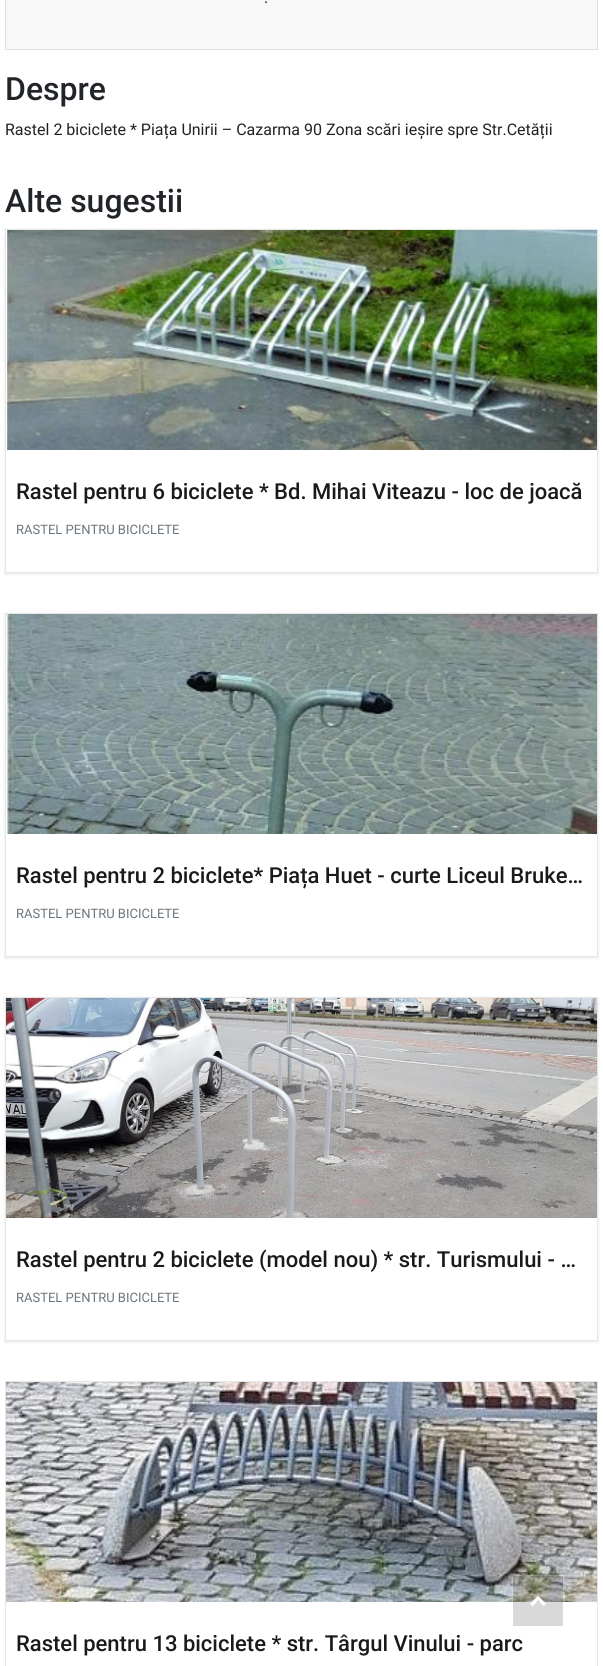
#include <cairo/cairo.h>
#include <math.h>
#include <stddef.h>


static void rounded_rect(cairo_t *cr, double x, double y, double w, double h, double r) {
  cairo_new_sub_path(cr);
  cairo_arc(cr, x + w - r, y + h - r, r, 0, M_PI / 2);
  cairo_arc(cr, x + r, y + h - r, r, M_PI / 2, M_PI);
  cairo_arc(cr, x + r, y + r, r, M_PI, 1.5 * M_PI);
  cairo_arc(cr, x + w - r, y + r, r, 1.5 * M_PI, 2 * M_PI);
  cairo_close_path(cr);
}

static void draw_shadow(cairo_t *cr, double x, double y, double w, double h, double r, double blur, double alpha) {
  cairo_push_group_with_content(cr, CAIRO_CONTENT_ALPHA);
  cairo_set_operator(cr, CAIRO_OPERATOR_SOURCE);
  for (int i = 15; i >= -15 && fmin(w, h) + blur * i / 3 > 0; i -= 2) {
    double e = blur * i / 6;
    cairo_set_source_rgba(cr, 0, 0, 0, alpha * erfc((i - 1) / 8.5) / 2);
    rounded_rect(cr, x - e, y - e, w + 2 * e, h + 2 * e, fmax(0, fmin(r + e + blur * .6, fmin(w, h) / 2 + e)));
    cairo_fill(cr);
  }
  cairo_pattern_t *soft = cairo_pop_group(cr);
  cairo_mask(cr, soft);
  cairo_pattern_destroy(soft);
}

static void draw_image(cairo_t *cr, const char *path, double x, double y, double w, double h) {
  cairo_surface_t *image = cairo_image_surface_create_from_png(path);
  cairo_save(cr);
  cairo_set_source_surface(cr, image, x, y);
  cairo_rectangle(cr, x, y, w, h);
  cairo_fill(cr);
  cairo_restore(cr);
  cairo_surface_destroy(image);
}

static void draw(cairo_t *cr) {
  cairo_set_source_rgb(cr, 1, 1, 1);
  cairo_paint(cr);
  cairo_set_source_rgb(cr, 248 / 255.0, 248 / 255.0, 248 / 255.0);
  cairo_rectangle(cr, 5.5, -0.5, 592, 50);
  cairo_fill_preserve(cr);
  cairo_set_source_rgb(cr, 224 / 255.0, 224 / 255.0, 224 / 255.0);
  cairo_set_line_width(cr, 1);
  cairo_stroke(cr);
  cairo_save(cr);
  cairo_set_fill_rule(cr, CAIRO_FILL_RULE_EVEN_ODD);
  cairo_new_path(cr);
  cairo_move_to(cr, 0, 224);
  cairo_line_to(cr, 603, 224);
  cairo_line_to(cr, 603, 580);
  cairo_line_to(cr, 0, 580);
  cairo_close_path(cr);
  cairo_move_to(cr, 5, 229);
  cairo_line_to(cr, 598, 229);
  cairo_line_to(cr, 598, 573);
  cairo_line_to(cr, 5, 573);
  cairo_close_path(cr);
  cairo_clip(cr);
  cairo_set_source_rgb(cr, 230 / 255.0, 230 / 255.0, 230 / 255.0);
  draw_shadow(cr, 5, 230, 593, 344, 0, 1.5, 1);
  cairo_restore(cr);
  cairo_rectangle(cr, 5.5, 229.5, 592, 343);
  cairo_set_source_rgb(cr, 230 / 255.0, 230 / 255.0, 230 / 255.0);
  cairo_stroke(cr);
  draw_image(cr, "images/1.png", 6, 230, 591, 220);
  cairo_save(cr);
  cairo_set_fill_rule(cr, CAIRO_FILL_RULE_EVEN_ODD);
  cairo_new_path(cr);
  cairo_move_to(cr, 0, 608);
  cairo_line_to(cr, 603, 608);
  cairo_line_to(cr, 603, 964);
  cairo_line_to(cr, 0, 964);
  cairo_close_path(cr);
  cairo_move_to(cr, 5, 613);
  cairo_line_to(cr, 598, 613);
  cairo_line_to(cr, 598, 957);
  cairo_line_to(cr, 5, 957);
  cairo_close_path(cr);
  cairo_clip(cr);
  cairo_set_source_rgb(cr, 230 / 255.0, 230 / 255.0, 230 / 255.0);
  draw_shadow(cr, 5, 614, 593, 344, 0, 1.5, 1);
  cairo_restore(cr);
  cairo_rectangle(cr, 5.5, 613.5, 592, 343);
  cairo_stroke(cr);
  draw_image(cr, "images/2.png", 6, 614, 591, 220);
  cairo_save(cr);
  cairo_set_fill_rule(cr, CAIRO_FILL_RULE_EVEN_ODD);
  cairo_new_path(cr);
  cairo_move_to(cr, 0, 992);
  cairo_line_to(cr, 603, 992);
  cairo_line_to(cr, 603, 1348);
  cairo_line_to(cr, 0, 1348);
  cairo_close_path(cr);
  cairo_move_to(cr, 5, 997);
  cairo_line_to(cr, 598, 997);
  cairo_line_to(cr, 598, 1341);
  cairo_line_to(cr, 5, 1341);
  cairo_close_path(cr);
  cairo_clip(cr);
  cairo_set_source_rgb(cr, 230 / 255.0, 230 / 255.0, 230 / 255.0);
  draw_shadow(cr, 5, 998, 593, 344, 0, 1.5, 1);
  cairo_restore(cr);
  cairo_rectangle(cr, 5.5, 997.5, 592, 343);
  cairo_stroke(cr);
  draw_image(cr, "images/3.png", 6, 998, 591, 220);
  cairo_rectangle(cr, 5.5, 1381.5, 592, 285);
  cairo_stroke(cr);
  draw_image(cr, "images/4.png", 6, 1382, 591, 220);
  cairo_save(cr);
  cairo_set_fill_rule(cr, CAIRO_FILL_RULE_EVEN_ODD);
  cairo_new_path(cr);
  cairo_move_to(cr, 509, 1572);
  cairo_line_to(cr, 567, 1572);
  cairo_line_to(cr, 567, 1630);
  cairo_line_to(cr, 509, 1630);
  cairo_close_path(cr);
  cairo_move_to(cr, 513, 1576);
  cairo_line_to(cr, 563, 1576);
  cairo_line_to(cr, 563, 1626);
  cairo_line_to(cr, 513, 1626);
  cairo_close_path(cr);
  cairo_clip(cr);
  cairo_set_source_rgb(cr, 1, 1, 1);
  draw_shadow(cr, 513, 1576, 50, 50, 0, 1, 0.5);
  cairo_restore(cr);
  cairo_set_source_rgba(cr, 65 / 255.0, 65 / 255.0, 65 / 255.0, 0.2);
  cairo_rectangle(cr, 513, 1576, 50, 50);
  cairo_fill(cr);
  draw_image(cr, "images/5.png", 530, 1596, 16, 10);
  cairo_select_font_face(cr, "Roboto", CAIRO_FONT_SLANT_NORMAL, CAIRO_FONT_WEIGHT_NORMAL);
  cairo_set_font_size(cr, 16);
  cairo_set_source_rgb(cr, 33 / 255.0, 37 / 255.0, 41 / 255.0);
  cairo_move_to(cr, 264, 3);
  cairo_show_text(cr, ".");
  cairo_select_font_face(cr, "Roboto Medium", CAIRO_FONT_SLANT_NORMAL, CAIRO_FONT_WEIGHT_NORMAL);
  cairo_set_font_size(cr, 32);
  cairo_move_to(cr, 5, 100);
  cairo_show_text(cr, "Despre");
  cairo_select_font_face(cr, "Roboto", CAIRO_FONT_SLANT_NORMAL, CAIRO_FONT_WEIGHT_NORMAL);
  cairo_set_font_size(cr, 16);
  cairo_set_source_rgb(cr, 34 / 255.0, 34 / 255.0, 34 / 255.0);
  cairo_move_to(cr, 5, 135);
  cairo_show_text(cr, "Rastel 2 biciclete * Piața Unirii – Cazarma 90 Zona scări ieșire spre Str.Cetății");
  cairo_select_font_face(cr, "Roboto Medium", CAIRO_FONT_SLANT_NORMAL, CAIRO_FONT_WEIGHT_NORMAL);
  cairo_set_font_size(cr, 32);
  cairo_set_source_rgb(cr, 33 / 255.0, 37 / 255.0, 41 / 255.0);
  cairo_move_to(cr, 5, 212);
  cairo_show_text(cr, "Alte sugestii");
  cairo_set_font_size(cr, 22);
  cairo_set_source_rgb(cr, 26 / 255.0, 26 / 255.0, 26 / 255.0);
  cairo_move_to(cr, 16, 499);
  cairo_show_text(cr, "Rastel pentru 6 biciclete * Bd. Mihai Viteazu - loc de joacă");
  cairo_select_font_face(cr, "Roboto", CAIRO_FONT_SLANT_NORMAL, CAIRO_FONT_WEIGHT_NORMAL);
  cairo_set_font_size(cr, 13);
  cairo_set_source_rgb(cr, 108 / 255.0, 117 / 255.0, 125 / 255.0);
  cairo_move_to(cr, 16, 534);
  cairo_show_text(cr, "RASTEL PENTRU BICICLETE");
  cairo_select_font_face(cr, "Roboto Medium", CAIRO_FONT_SLANT_NORMAL, CAIRO_FONT_WEIGHT_NORMAL);
  cairo_set_font_size(cr, 22);
  cairo_set_source_rgb(cr, 26 / 255.0, 26 / 255.0, 26 / 255.0);
  cairo_move_to(cr, 16, 883);
  cairo_show_text(cr, "Rastel pentru 2 biciclete* Piața Huet - curte Liceul Bruke…");
  cairo_select_font_face(cr, "Roboto", CAIRO_FONT_SLANT_NORMAL, CAIRO_FONT_WEIGHT_NORMAL);
  cairo_set_font_size(cr, 13);
  cairo_set_source_rgb(cr, 108 / 255.0, 117 / 255.0, 125 / 255.0);
  cairo_move_to(cr, 16, 918);
  cairo_show_text(cr, "RASTEL PENTRU BICICLETE");
  cairo_select_font_face(cr, "Roboto Medium", CAIRO_FONT_SLANT_NORMAL, CAIRO_FONT_WEIGHT_NORMAL);
  cairo_set_font_size(cr, 22);
  cairo_set_source_rgb(cr, 26 / 255.0, 26 / 255.0, 26 / 255.0);
  cairo_move_to(cr, 16, 1267);
  cairo_show_text(cr, "Rastel pentru 2 biciclete (model nou) * str. Turismului - …");
  cairo_select_font_face(cr, "Roboto", CAIRO_FONT_SLANT_NORMAL, CAIRO_FONT_WEIGHT_NORMAL);
  cairo_set_font_size(cr, 13);
  cairo_set_source_rgb(cr, 108 / 255.0, 117 / 255.0, 125 / 255.0);
  cairo_move_to(cr, 16, 1302);
  cairo_show_text(cr, "RASTEL PENTRU BICICLETE");
  cairo_select_font_face(cr, "Roboto Medium", CAIRO_FONT_SLANT_NORMAL, CAIRO_FONT_WEIGHT_NORMAL);
  cairo_set_font_size(cr, 22);
  cairo_set_source_rgb(cr, 26 / 255.0, 26 / 255.0, 26 / 255.0);
  cairo_move_to(cr, 16, 1651);
  cairo_show_text(cr, "Rastel pentru 13 biciclete * str. Târgul Vinului - parc");
}

int main(void) {
  cairo_surface_t *surface = cairo_image_surface_create(CAIRO_FORMAT_RGB24, 603, 1666);
  cairo_t *cr = cairo_create(surface);
  cairo_font_options_t *options = cairo_font_options_create();
  cairo_font_options_set_hint_metrics(options, CAIRO_HINT_METRICS_OFF);
  cairo_font_options_set_hint_style(options, CAIRO_HINT_STYLE_NONE);
  cairo_set_font_options(cr, options);
  cairo_set_miter_limit(cr, 4);
  draw(cr);
  cairo_surface_write_to_png(surface, "out.png");
  cairo_font_options_destroy(options);
  cairo_destroy(cr);
  cairo_surface_destroy(surface);
  return 0;
}
